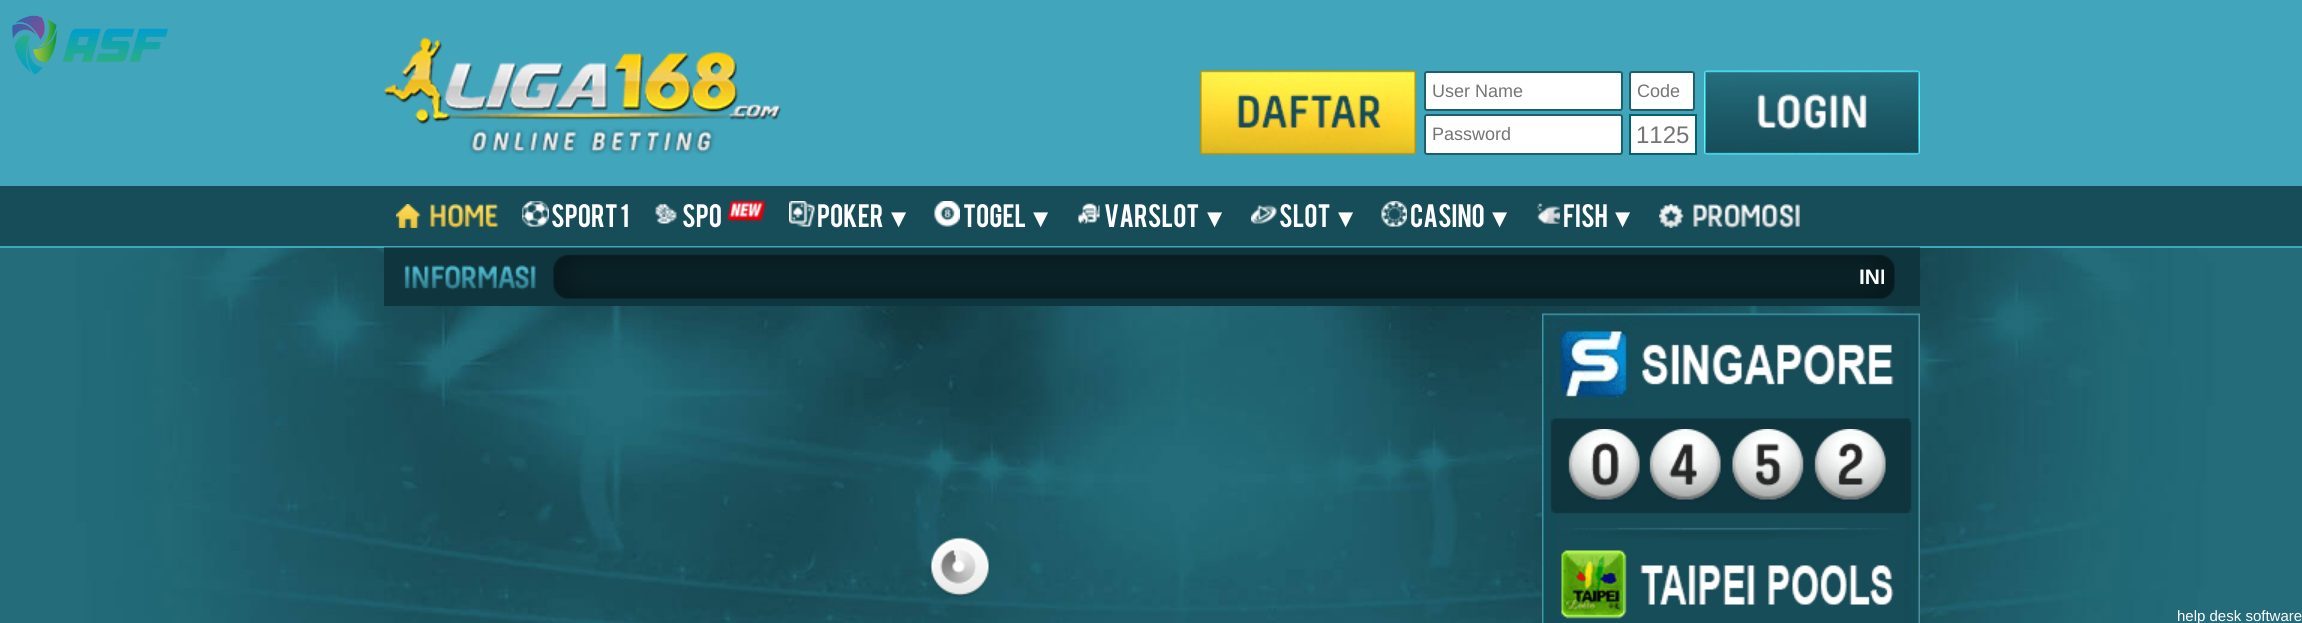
#include <cairo/cairo.h>
#include <math.h>
#include <stddef.h>


static void rounded_rect(cairo_t *cr, double x, double y, double w, double h, double r) {
  cairo_new_sub_path(cr);
  cairo_arc(cr, x + w - r, y + h - r, r, 0, M_PI / 2);
  cairo_arc(cr, x + r, y + h - r, r, M_PI / 2, M_PI);
  cairo_arc(cr, x + r, y + r, r, M_PI, 1.5 * M_PI);
  cairo_arc(cr, x + w - r, y + r, r, 1.5 * M_PI, 2 * M_PI);
  cairo_close_path(cr);
}

static void draw_image(cairo_t *cr, const char *path, double x, double y, double w, double h) {
  cairo_surface_t *image = cairo_image_surface_create_from_png(path);
  cairo_save(cr);
  cairo_set_source_surface(cr, image, x, y);
  cairo_rectangle(cr, x, y, w, h);
  cairo_fill(cr);
  cairo_restore(cr);
  cairo_surface_destroy(image);
}

static void draw(cairo_t *cr) {
  cairo_set_source_rgb(cr, 1, 1, 1);
  cairo_paint(cr);
  draw_image(cr, "images/1.png", 0, 248, 2302, 375);
  cairo_set_source_rgb(cr, 65 / 255.0, 165 / 255.0, 188 / 255.0);
  cairo_rectangle(cr, 0, 0, 2302, 186);
  cairo_fill(cr);
  draw_image(cr, "images/2.png", 12, 15, 156, 60);
  draw_image(cr, "images/3.png", 384, 37, 398, 118);
  draw_image(cr, "images/4.png", 1200, 70, 216, 85);
  cairo_set_source_rgb(cr, 1, 1, 1);
  rounded_rect(cr, 1425, 72, 197, 38, 2);
  cairo_fill_preserve(cr);
  cairo_set_source_rgb(cr, 30 / 255.0, 95 / 255.0, 110 / 255.0);
  cairo_stroke(cr);
  cairo_set_source_rgb(cr, 1, 1, 1);
  rounded_rect(cr, 1630, 72, 64, 38, 2);
  cairo_fill_preserve(cr);
  cairo_set_source_rgb(cr, 30 / 255.0, 95 / 255.0, 110 / 255.0);
  cairo_stroke(cr);
  draw_image(cr, "images/5.png", 1704, 70, 216, 85);
  cairo_set_source_rgb(cr, 1, 1, 1);
  rounded_rect(cr, 1425, 115, 197, 39, 2);
  cairo_fill_preserve(cr);
  cairo_set_source_rgb(cr, 30 / 255.0, 95 / 255.0, 110 / 255.0);
  cairo_stroke(cr);
  cairo_set_source_rgb(cr, 1, 1, 1);
  cairo_rectangle(cr, 1630, 115, 66, 39);
  cairo_fill_preserve(cr);
  cairo_set_source_rgb(cr, 6 / 255.0, 95 / 255.0, 109 / 255.0);
  cairo_stroke(cr);
  cairo_set_source_rgb(cr, 22 / 255.0, 77 / 255.0, 89 / 255.0);
  cairo_rectangle(cr, 0, 186, 2302, 60);
  cairo_fill(cr);
  cairo_set_source_rgb(cr, 63 / 255.0, 166 / 255.0, 187 / 255.0);
  cairo_rectangle(cr, 0, 246, 2302, 2);
  cairo_fill(cr);
  draw_image(cr, "images/6.png", 396, 204, 102, 24);
  draw_image(cr, "images/7.png", 522, 201, 27, 26);
  draw_image(cr, "images/8.png", 655, 203, 22, 21);
  draw_image(cr, "images/9.png", 727, 201, 38, 20);
  draw_image(cr, "images/10.png", 789, 201, 26, 26);
  draw_image(cr, "images/11.png", 934, 201, 26, 26);
  draw_image(cr, "images/12.png", 1078, 203, 22, 21);
  draw_image(cr, "images/13.png", 1251, 205, 26, 19);
  draw_image(cr, "images/14.png", 1381, 201, 26, 26);
  draw_image(cr, "images/15.png", 1537, 203, 23, 21);
  draw_image(cr, "images/16.png", 1659, 204, 141, 24);
  draw_image(cr, "images/17.png", 384, 247, 1536, 59);
  draw_image(cr, "images/18.png", 930, 537, 60, 60);
  draw_image(cr, "images/19.png", 1542, 313, 378, 310);
  draw_image(cr, "images/20.png", 1568, 429, 72, 73);
  draw_image(cr, "images/21.png", 1649, 429, 72, 73);
  draw_image(cr, "images/22.png", 1732, 429, 72, 73);
  draw_image(cr, "images/23.png", 1814, 429, 72, 73);
  cairo_select_font_face(cr, "Liberation Sans", CAIRO_FONT_SLANT_NORMAL, CAIRO_FONT_WEIGHT_NORMAL);
  cairo_set_font_size(cr, 18);
  cairo_set_source_rgb(cr, 117 / 255.0, 117 / 255.0, 117 / 255.0);
  cairo_move_to(cr, 1432, 97);
  cairo_show_text(cr, "User Name");
  cairo_move_to(cr, 1637, 97);
  cairo_show_text(cr, "Code");
  cairo_move_to(cr, 1432, 140);
  cairo_show_text(cr, "Password");
  cairo_set_font_size(cr, 24);
  cairo_move_to(cr, 1636, 143);
  cairo_show_text(cr, "1125");
  cairo_select_font_face(cr, "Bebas", CAIRO_FONT_SLANT_NORMAL, CAIRO_FONT_WEIGHT_NORMAL);
  cairo_set_font_size(cr, 25.5);
  cairo_set_source_rgb(cr, 1, 1, 1);
  cairo_move_to(cr, 551, 227);
  cairo_show_text(cr, "SPORT 1");
  cairo_move_to(cr, 682, 227);
  cairo_show_text(cr, "SPO");
  cairo_move_to(cr, 817, 227);
  cairo_show_text(cr, "POKER");
  cairo_select_font_face(cr, "Liberation Serif", CAIRO_FONT_SLANT_NORMAL, CAIRO_FONT_WEIGHT_NORMAL);
  cairo_move_to(cr, 886, 227);
  cairo_show_text(cr, "▼");
  cairo_select_font_face(cr, "Bebas", CAIRO_FONT_SLANT_NORMAL, CAIRO_FONT_WEIGHT_NORMAL);
  cairo_move_to(cr, 963, 227);
  cairo_show_text(cr, "TOGEL");
  cairo_select_font_face(cr, "Liberation Serif", CAIRO_FONT_SLANT_NORMAL, CAIRO_FONT_WEIGHT_NORMAL);
  cairo_move_to(cr, 1028, 227);
  cairo_show_text(cr, "▼");
  cairo_select_font_face(cr, "Bebas", CAIRO_FONT_SLANT_NORMAL, CAIRO_FONT_WEIGHT_NORMAL);
  cairo_move_to(cr, 1104, 227);
  cairo_show_text(cr, "VARSLOT");
  cairo_select_font_face(cr, "Liberation Serif", CAIRO_FONT_SLANT_NORMAL, CAIRO_FONT_WEIGHT_NORMAL);
  cairo_move_to(cr, 1202, 227);
  cairo_show_text(cr, "▼");
  cairo_select_font_face(cr, "Bebas", CAIRO_FONT_SLANT_NORMAL, CAIRO_FONT_WEIGHT_NORMAL);
  cairo_move_to(cr, 1279, 227);
  cairo_show_text(cr, "SLOT");
  cairo_select_font_face(cr, "Liberation Serif", CAIRO_FONT_SLANT_NORMAL, CAIRO_FONT_WEIGHT_NORMAL);
  cairo_move_to(cr, 1333, 227);
  cairo_show_text(cr, "▼");
  cairo_select_font_face(cr, "Bebas", CAIRO_FONT_SLANT_NORMAL, CAIRO_FONT_WEIGHT_NORMAL);
  cairo_move_to(cr, 1410, 227);
  cairo_show_text(cr, "CASINO");
  cairo_select_font_face(cr, "Liberation Serif", CAIRO_FONT_SLANT_NORMAL, CAIRO_FONT_WEIGHT_NORMAL);
  cairo_move_to(cr, 1487, 227);
  cairo_show_text(cr, "▼");
  cairo_select_font_face(cr, "Bebas", CAIRO_FONT_SLANT_NORMAL, CAIRO_FONT_WEIGHT_NORMAL);
  cairo_move_to(cr, 1563, 227);
  cairo_show_text(cr, "FISH");
  cairo_select_font_face(cr, "Liberation Serif", CAIRO_FONT_SLANT_NORMAL, CAIRO_FONT_WEIGHT_NORMAL);
  cairo_move_to(cr, 1610, 227);
  cairo_show_text(cr, "▼");
  cairo_save(cr);
  cairo_rectangle(cr, 564, 248, 1320, 58);
  cairo_clip(cr);
  cairo_select_font_face(cr, "Liberation Sans", CAIRO_FONT_SLANT_NORMAL, CAIRO_FONT_WEIGHT_BOLD);
  cairo_set_font_size(cr, 21);
  cairo_move_to(cr, 1859, 284);
  cairo_show_text(cr, "INF");
  cairo_restore(cr);
  cairo_select_font_face(cr, "Liberation Sans", CAIRO_FONT_SLANT_NORMAL, CAIRO_FONT_WEIGHT_NORMAL);
  cairo_set_font_size(cr, 15);
  cairo_move_to(cr, 2177, 621);
  cairo_show_text(cr, "help desk software");
}

int main(void) {
  cairo_surface_t *surface = cairo_image_surface_create(CAIRO_FORMAT_RGB24, 2302, 623);
  cairo_t *cr = cairo_create(surface);
  cairo_font_options_t *options = cairo_font_options_create();
  cairo_font_options_set_hint_metrics(options, CAIRO_HINT_METRICS_OFF);
  cairo_font_options_set_hint_style(options, CAIRO_HINT_STYLE_NONE);
  cairo_set_font_options(cr, options);
  cairo_set_miter_limit(cr, 4);
  draw(cr);
  cairo_surface_write_to_png(surface, "out.png");
  cairo_font_options_destroy(options);
  cairo_destroy(cr);
  cairo_surface_destroy(surface);
  return 0;
}
